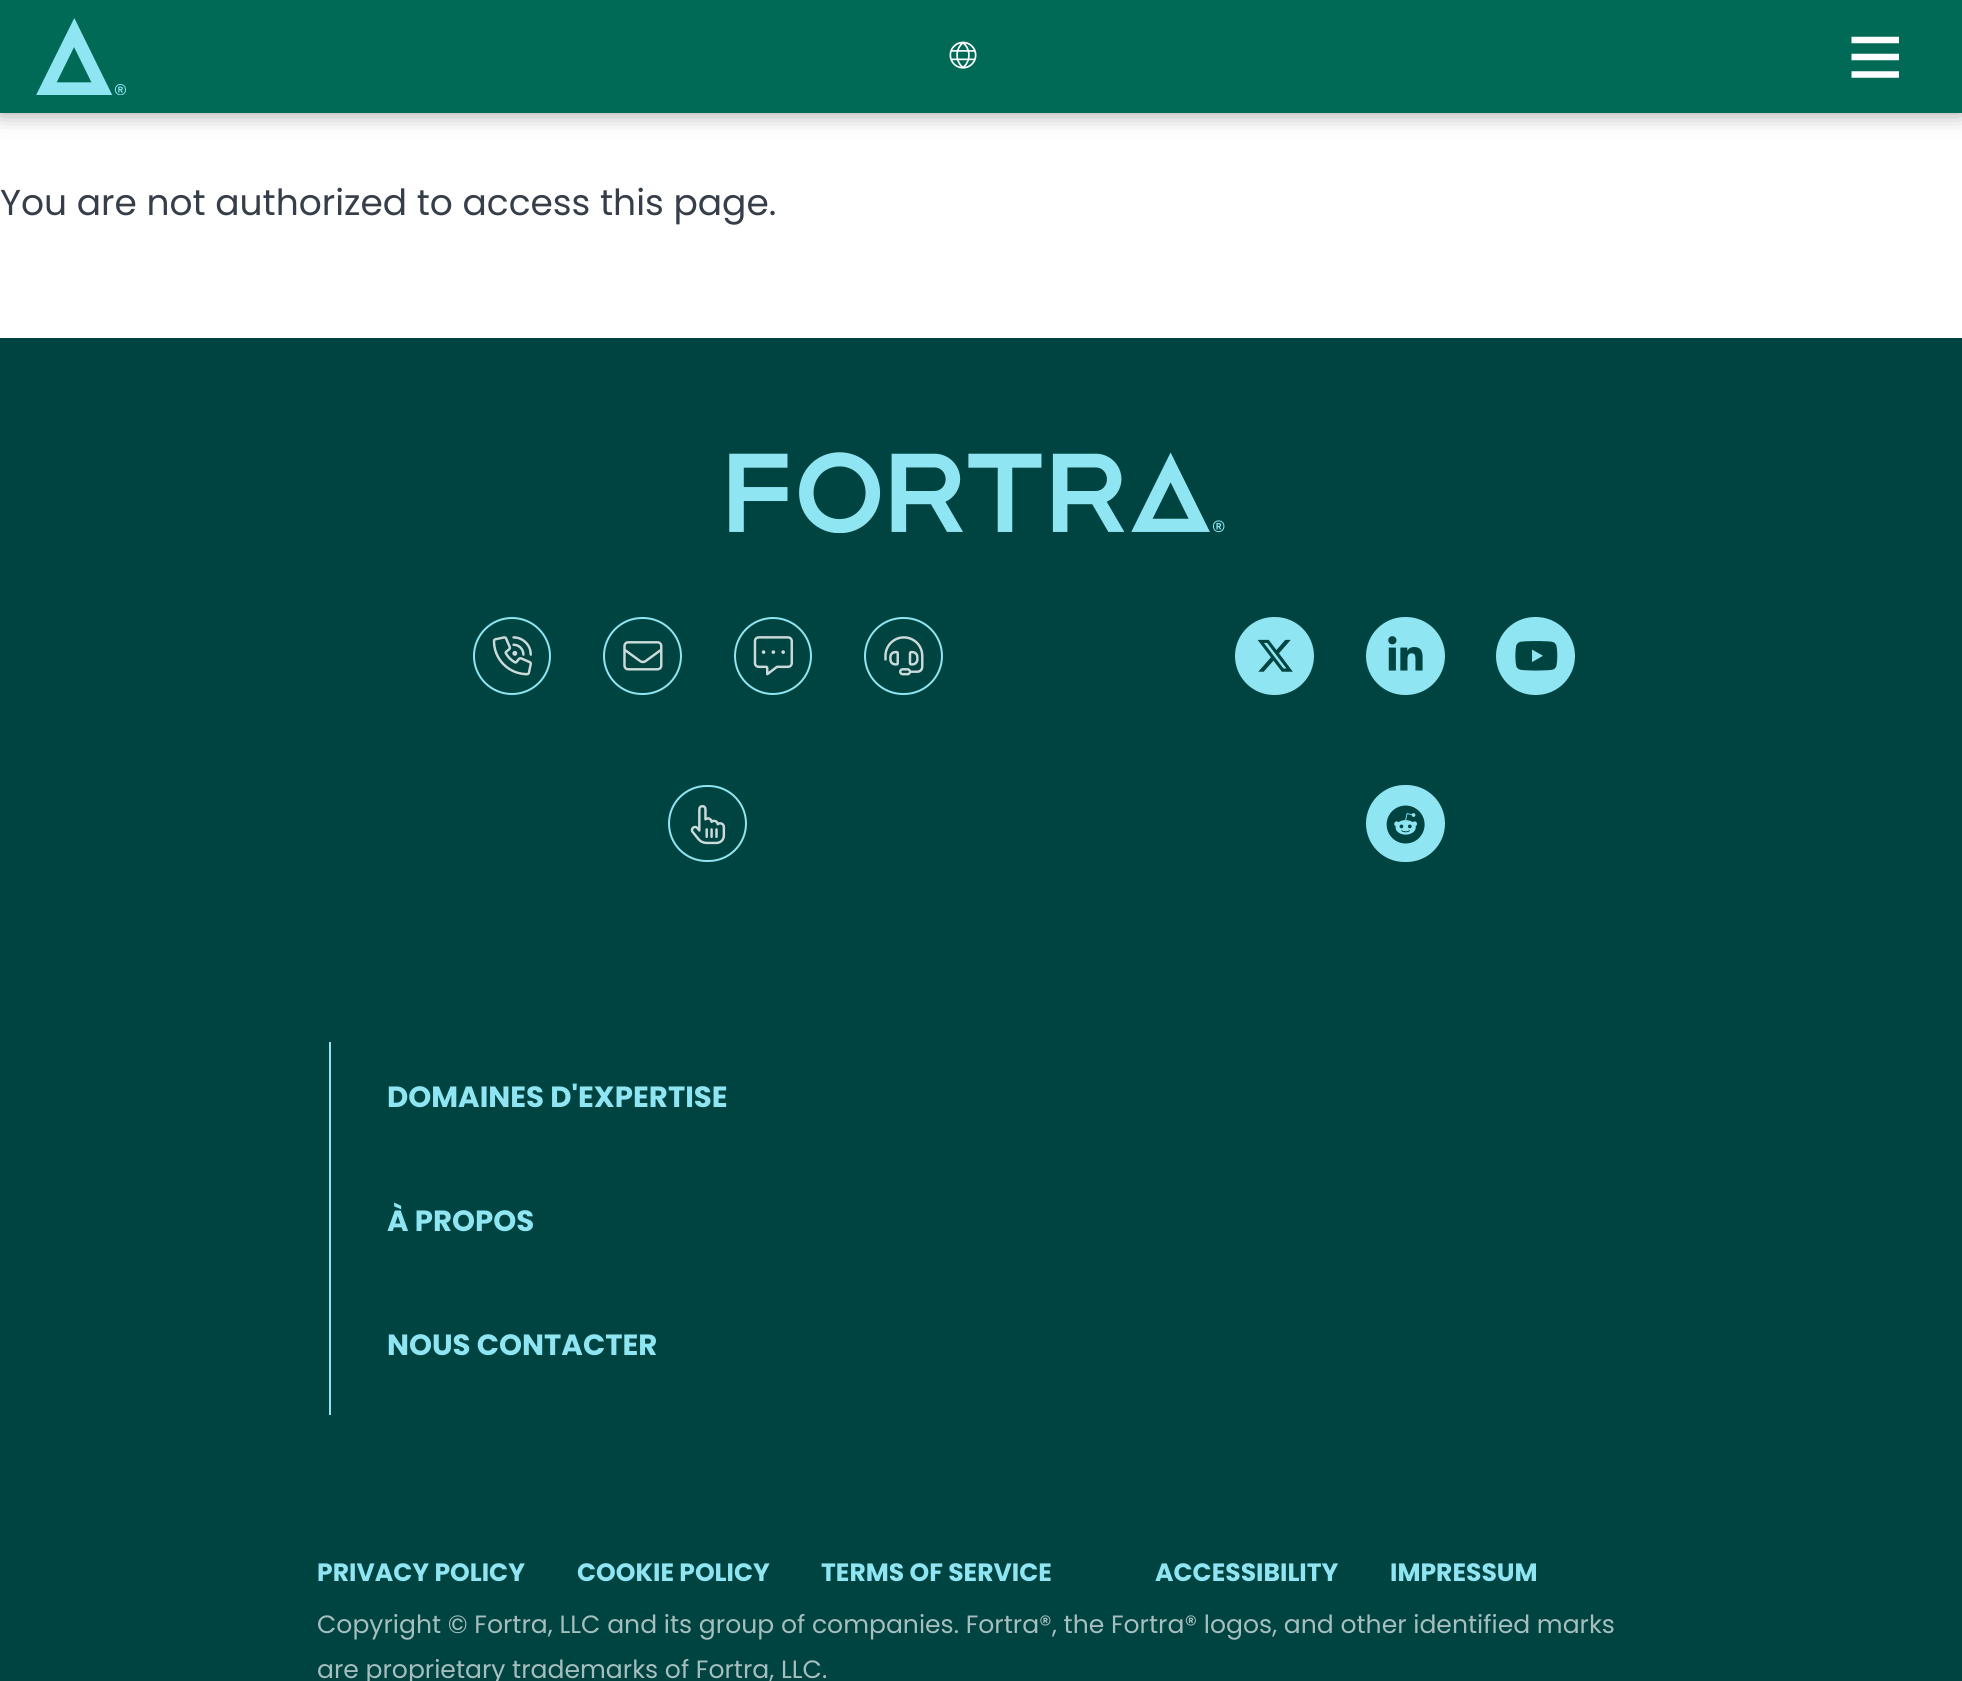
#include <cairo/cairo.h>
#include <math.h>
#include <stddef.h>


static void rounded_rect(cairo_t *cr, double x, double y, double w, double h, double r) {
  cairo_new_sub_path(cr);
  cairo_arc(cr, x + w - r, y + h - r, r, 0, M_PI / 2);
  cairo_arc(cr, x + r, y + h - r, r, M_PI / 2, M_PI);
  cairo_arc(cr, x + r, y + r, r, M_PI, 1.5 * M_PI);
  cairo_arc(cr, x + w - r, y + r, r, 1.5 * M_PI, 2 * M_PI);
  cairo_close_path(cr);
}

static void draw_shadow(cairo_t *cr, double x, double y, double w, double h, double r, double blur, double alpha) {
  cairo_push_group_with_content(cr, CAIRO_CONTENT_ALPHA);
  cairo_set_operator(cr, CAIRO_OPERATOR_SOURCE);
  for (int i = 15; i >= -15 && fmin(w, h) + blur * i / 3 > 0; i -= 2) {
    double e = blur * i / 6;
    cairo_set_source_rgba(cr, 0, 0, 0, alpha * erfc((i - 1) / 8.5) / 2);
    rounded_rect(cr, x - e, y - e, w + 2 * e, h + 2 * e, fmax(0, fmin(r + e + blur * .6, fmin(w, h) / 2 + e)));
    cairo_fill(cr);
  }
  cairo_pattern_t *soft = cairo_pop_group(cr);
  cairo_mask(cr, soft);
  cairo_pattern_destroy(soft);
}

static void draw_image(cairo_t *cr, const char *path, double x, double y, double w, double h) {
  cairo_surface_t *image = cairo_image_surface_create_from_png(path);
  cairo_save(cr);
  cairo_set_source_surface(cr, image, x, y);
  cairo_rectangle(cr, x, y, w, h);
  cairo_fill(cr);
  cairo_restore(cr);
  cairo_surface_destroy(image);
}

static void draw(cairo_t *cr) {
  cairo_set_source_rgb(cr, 1, 1, 1);
  cairo_paint(cr);
  cairo_set_source_rgb(cr, 0, 0, 0);
  draw_shadow(cr, 0, 0, 1962, 113, 0, 11, 0.4);
  cairo_set_source_rgb(cr, 0, 106 / 255.0, 86 / 255.0);
  cairo_rectangle(cr, 0, 0, 1962, 113);
  cairo_fill(cr);
  draw_image(cr, "images/1.png", 36, 18, 90, 77);
  draw_image(cr, "images/2.png", 949, 41, 28, 28);
  cairo_new_path(cr);
  cairo_move_to(cr, 1851.5, 40);
  cairo_line_to(cr, 1899, 40);
  cairo_move_to(cr, 1851.5, 57);
  cairo_line_to(cr, 1899, 57);
  cairo_move_to(cr, 1851.5, 74.5);
  cairo_line_to(cr, 1899, 74.5);
  cairo_set_source_rgb(cr, 1, 1, 1);
  cairo_set_line_width(cr, 6.5);
  cairo_stroke(cr);
  cairo_set_source_rgb(cr, 0, 68 / 255.0, 66 / 255.0);
  cairo_rectangle(cr, 0, 338, 1962, 1343);
  cairo_fill(cr);
  draw_image(cr, "images/3.png", 729, 452, 496, 81);
  cairo_arc(cr, 512, 656, 38, 0, 2 * M_PI);
  cairo_set_source_rgb(cr, 143 / 255.0, 229 / 255.0, 242 / 255.0);
  cairo_set_line_width(cr, 2);
  cairo_stroke(cr);
  draw_image(cr, "images/4.png", 492, 636, 40, 40);
  rounded_rect(cr, 604, 618, 77, 76, 38);
  cairo_stroke(cr);
  draw_image(cr, "images/5.png", 623, 641, 40, 30);
  cairo_arc(cr, 773, 656, 38, 0, 2 * M_PI);
  cairo_stroke(cr);
  draw_image(cr, "images/6.png", 753, 636, 40, 40);
  rounded_rect(cr, 865, 618, 77, 76, 38);
  cairo_stroke(cr);
  draw_image(cr, "images/7.png", 884, 636, 40, 40);
  rounded_rect(cr, 669, 786, 77, 75, 37.5);
  cairo_stroke(cr);
  draw_image(cr, "images/8.png", 690, 804, 36, 41);
  rounded_rect(cr, 1236, 618, 77, 76, 38);
  cairo_fill_preserve(cr);
  cairo_stroke(cr);
  draw_image(cr, "images/9.png", 1257, 639, 36, 33);
  rounded_rect(cr, 1367, 618, 77, 76, 38);
  cairo_fill_preserve(cr);
  cairo_stroke(cr);
  draw_image(cr, "images/10.png", 1388, 636, 35, 35);
  rounded_rect(cr, 1497, 618, 77, 76, 38);
  cairo_fill_preserve(cr);
  cairo_stroke(cr);
  draw_image(cr, "images/11.png", 1515, 641, 43, 30);
  rounded_rect(cr, 1367, 786, 77, 75, 37.5);
  cairo_fill_preserve(cr);
  cairo_stroke(cr);
  draw_image(cr, "images/12.png", 1386, 805, 39, 39);
  cairo_rectangle(cr, 329, 1042, 2, 373);
  cairo_fill(cr);
  cairo_select_font_face(cr, "Poppins", CAIRO_FONT_SLANT_NORMAL, CAIRO_FONT_WEIGHT_NORMAL);
  cairo_set_font_size(cr, 36);
  cairo_set_source_rgb(cr, 54 / 255.0, 62 / 255.0, 73 / 255.0);
  cairo_move_to(cr, 0, 215);
  cairo_show_text(cr, "You are not authorized to access this page.");
  cairo_select_font_face(cr, "Poppins", CAIRO_FONT_SLANT_NORMAL, CAIRO_FONT_WEIGHT_BOLD);
  cairo_set_font_size(cr, 29.25);
  cairo_set_source_rgb(cr, 143 / 255.0, 229 / 255.0, 242 / 255.0);
  cairo_move_to(cr, 387, 1107);
  cairo_show_text(cr, "DOMAINES D'EXPERTISE");
  cairo_move_to(cr, 387, 1231);
  cairo_show_text(cr, "À PROPOS");
  cairo_move_to(cr, 387, 1355);
  cairo_show_text(cr, "NOUS CONTACTER");
  cairo_set_font_size(cr, 25.07);
  cairo_move_to(cr, 317, 1581);
  cairo_show_text(cr, "PRIVACY POLICY");
  cairo_move_to(cr, 577, 1581);
  cairo_show_text(cr, "COOKIE POLICY");
  cairo_move_to(cr, 821, 1581);
  cairo_show_text(cr, "TERMS OF SERVICE");
  cairo_move_to(cr, 1155, 1581);
  cairo_show_text(cr, "ACCESSIBILITY");
  cairo_move_to(cr, 1390, 1581);
  cairo_show_text(cr, "IMPRESSUM");
  cairo_select_font_face(cr, "Poppins", CAIRO_FONT_SLANT_NORMAL, CAIRO_FONT_WEIGHT_NORMAL);
  cairo_set_source_rgb(cr, 166 / 255.0, 190 / 255.0, 189 / 255.0);
  cairo_move_to(cr, 317, 1633);
  cairo_show_text(cr, "Copyright © Fortra, LLC and its group of companies. Fortra®, the Fortra® logos, and other identified marks");
  cairo_move_to(cr, 317, 1678);
  cairo_show_text(cr, "are proprietary trademarks of Fortra, LLC.");
}

int main(void) {
  cairo_surface_t *surface = cairo_image_surface_create(CAIRO_FORMAT_RGB24, 1962, 1681);
  cairo_t *cr = cairo_create(surface);
  cairo_font_options_t *options = cairo_font_options_create();
  cairo_font_options_set_hint_metrics(options, CAIRO_HINT_METRICS_OFF);
  cairo_font_options_set_hint_style(options, CAIRO_HINT_STYLE_NONE);
  cairo_set_font_options(cr, options);
  cairo_set_miter_limit(cr, 4);
  draw(cr);
  cairo_surface_write_to_png(surface, "out.png");
  cairo_font_options_destroy(options);
  cairo_destroy(cr);
  cairo_surface_destroy(surface);
  return 0;
}
